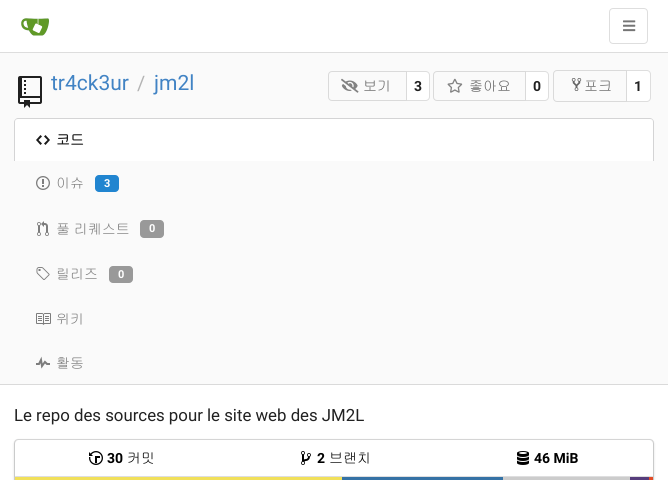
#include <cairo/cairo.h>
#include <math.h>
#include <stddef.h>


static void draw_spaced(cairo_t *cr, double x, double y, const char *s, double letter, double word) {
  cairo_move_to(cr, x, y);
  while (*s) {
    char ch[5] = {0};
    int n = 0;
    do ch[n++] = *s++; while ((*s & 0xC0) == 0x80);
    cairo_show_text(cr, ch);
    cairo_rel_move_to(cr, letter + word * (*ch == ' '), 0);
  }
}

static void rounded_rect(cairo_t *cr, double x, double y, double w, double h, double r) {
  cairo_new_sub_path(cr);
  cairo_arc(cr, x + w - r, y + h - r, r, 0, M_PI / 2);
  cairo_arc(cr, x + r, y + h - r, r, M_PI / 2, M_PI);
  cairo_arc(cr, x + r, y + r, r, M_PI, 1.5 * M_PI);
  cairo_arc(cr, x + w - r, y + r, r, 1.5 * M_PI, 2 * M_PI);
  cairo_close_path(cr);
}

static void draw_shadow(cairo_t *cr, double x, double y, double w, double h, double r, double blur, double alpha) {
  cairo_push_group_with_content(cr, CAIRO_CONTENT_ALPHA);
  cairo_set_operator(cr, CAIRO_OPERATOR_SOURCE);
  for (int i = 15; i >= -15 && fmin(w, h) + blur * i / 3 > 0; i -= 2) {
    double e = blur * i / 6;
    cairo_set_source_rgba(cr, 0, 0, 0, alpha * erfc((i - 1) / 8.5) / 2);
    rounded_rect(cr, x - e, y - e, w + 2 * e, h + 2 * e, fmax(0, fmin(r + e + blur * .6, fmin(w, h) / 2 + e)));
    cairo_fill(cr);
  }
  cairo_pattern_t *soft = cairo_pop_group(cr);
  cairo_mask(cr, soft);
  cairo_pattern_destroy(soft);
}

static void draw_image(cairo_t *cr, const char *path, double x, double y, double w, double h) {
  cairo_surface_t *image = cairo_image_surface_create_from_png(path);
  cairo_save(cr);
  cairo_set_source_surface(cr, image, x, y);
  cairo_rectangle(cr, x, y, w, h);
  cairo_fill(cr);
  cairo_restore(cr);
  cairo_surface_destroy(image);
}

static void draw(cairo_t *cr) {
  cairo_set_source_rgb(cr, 1, 1, 1);
  cairo_paint(cr);
  cairo_set_source_rgb(cr, 221 / 255.0, 221 / 255.0, 221 / 255.0);
  cairo_rectangle(cr, 0, 52, 668, 1);
  cairo_fill(cr);
  draw_image(cr, "images/1.png", 21, 18, 28, 18);
  rounded_rect(cr, 609.5, 8.5, 38, 35, 3.5);
  cairo_set_source_rgb(cr, 222 / 255.0, 222 / 255.0, 222 / 255.0);
  cairo_set_line_width(cr, 1);
  cairo_stroke(cr);
  draw_image(cr, "images/2.png", 623, 20, 13, 12);
  cairo_set_source_rgb(cr, 250 / 255.0, 250 / 255.0, 250 / 255.0);
  cairo_rectangle(cr, 0, 53, 668, 331);
  cairo_fill(cr);
  draw_image(cr, "images/3.png", 18, 76, 24, 32);
  cairo_new_path(cr);
  cairo_move_to(cr, 332, 71.5);
  cairo_line_to(cr, 406.5, 71.5);
  cairo_line_to(cr, 406.5, 100.5);
  cairo_line_to(cr, 332, 100.5);
  cairo_curve_to(cr, 330, 100.5, 328.5, 99, 328.5, 97);
  cairo_line_to(cr, 328.5, 75);
  cairo_curve_to(cr, 328.5, 73, 330, 71.5, 332, 71.5);
  cairo_close_path(cr);
  cairo_set_source_rgb(cr, 218 / 255.0, 218 / 255.0, 218 / 255.0);
  cairo_stroke(cr);
  draw_image(cr, "images/4.png", 341, 78, 18, 15);
  cairo_set_source_rgb(cr, 1, 1, 1);
  cairo_new_path(cr);
  cairo_move_to(cr, 407, 71);
  cairo_line_to(cr, 426, 71);
  cairo_curve_to(cr, 428, 71, 430, 73, 430, 75);
  cairo_line_to(cr, 430, 97);
  cairo_curve_to(cr, 430, 99, 428, 101, 426, 101);
  cairo_line_to(cr, 407, 101);
  cairo_close_path(cr);
  cairo_fill(cr);
  cairo_set_source_rgb(cr, 222 / 255.0, 222 / 255.0, 222 / 255.0);
  cairo_set_fill_rule(cr, CAIRO_FILL_RULE_EVEN_ODD);
  cairo_new_path(cr);
  cairo_move_to(cr, 407, 71);
  cairo_line_to(cr, 426, 71);
  cairo_curve_to(cr, 428, 71, 430, 73, 430, 75);
  cairo_line_to(cr, 430, 97);
  cairo_curve_to(cr, 430, 99, 428, 101, 426, 101);
  cairo_line_to(cr, 407, 101);
  cairo_close_path(cr);
  cairo_move_to(cr, 407, 72);
  cairo_line_to(cr, 426, 72);
  cairo_curve_to(cr, 427.5, 72, 429, 73.5, 429, 75);
  cairo_line_to(cr, 429, 97);
  cairo_curve_to(cr, 429, 98.5, 427.5, 100, 426, 100);
  cairo_line_to(cr, 407, 100);
  cairo_close_path(cr);
  cairo_fill(cr);
  cairo_new_path(cr);
  cairo_move_to(cr, 437, 71.5);
  cairo_line_to(cr, 525.5, 71.5);
  cairo_line_to(cr, 525.5, 100.5);
  cairo_line_to(cr, 437, 100.5);
  cairo_curve_to(cr, 435, 100.5, 433.5, 99, 433.5, 97);
  cairo_line_to(cr, 433.5, 75);
  cairo_curve_to(cr, 433.5, 73, 435, 71.5, 437, 71.5);
  cairo_close_path(cr);
  cairo_set_source_rgb(cr, 218 / 255.0, 218 / 255.0, 218 / 255.0);
  cairo_stroke(cr);
  draw_image(cr, "images/5.png", 447, 78, 16, 15);
  cairo_set_source_rgb(cr, 1, 1, 1);
  cairo_new_path(cr);
  cairo_move_to(cr, 526, 71);
  cairo_line_to(cr, 545, 71);
  cairo_curve_to(cr, 547, 71, 549, 73, 549, 75);
  cairo_line_to(cr, 549, 97);
  cairo_curve_to(cr, 549, 99, 547, 101, 545, 101);
  cairo_line_to(cr, 526, 101);
  cairo_close_path(cr);
  cairo_fill(cr);
  cairo_set_source_rgb(cr, 222 / 255.0, 222 / 255.0, 222 / 255.0);
  cairo_new_path(cr);
  cairo_move_to(cr, 526, 71);
  cairo_line_to(cr, 545, 71);
  cairo_curve_to(cr, 547, 71, 549, 73, 549, 75);
  cairo_line_to(cr, 549, 97);
  cairo_curve_to(cr, 549, 99, 547, 101, 545, 101);
  cairo_line_to(cr, 526, 101);
  cairo_close_path(cr);
  cairo_move_to(cr, 526, 72);
  cairo_line_to(cr, 545, 72);
  cairo_curve_to(cr, 546.5, 72, 548, 73.5, 548, 75);
  cairo_line_to(cr, 548, 97);
  cairo_curve_to(cr, 548, 98.5, 546.5, 100, 545, 100);
  cairo_line_to(cr, 526, 100);
  cairo_close_path(cr);
  cairo_fill(cr);
  cairo_new_path(cr);
  cairo_move_to(cr, 557, 70.5);
  cairo_line_to(cr, 626.5, 70.5);
  cairo_line_to(cr, 626.5, 101.5);
  cairo_line_to(cr, 557, 101.5);
  cairo_curve_to(cr, 555, 101.5, 553.5, 100, 553.5, 98);
  cairo_line_to(cr, 553.5, 74);
  cairo_curve_to(cr, 553.5, 72, 555, 70.5, 557, 70.5);
  cairo_close_path(cr);
  cairo_set_source_rgb(cr, 218 / 255.0, 218 / 255.0, 218 / 255.0);
  cairo_stroke(cr);
  draw_image(cr, "images/6.png", 571, 78, 11, 13);
  cairo_set_source_rgb(cr, 1, 1, 1);
  cairo_new_path(cr);
  cairo_move_to(cr, 627, 70);
  cairo_line_to(cr, 647, 70);
  cairo_curve_to(cr, 649, 70, 651, 72, 651, 74);
  cairo_line_to(cr, 651, 98);
  cairo_curve_to(cr, 651, 100, 649, 102, 647, 102);
  cairo_line_to(cr, 627, 102);
  cairo_close_path(cr);
  cairo_fill(cr);
  cairo_set_source_rgb(cr, 222 / 255.0, 222 / 255.0, 222 / 255.0);
  cairo_new_path(cr);
  cairo_move_to(cr, 627, 70);
  cairo_line_to(cr, 647, 70);
  cairo_curve_to(cr, 649, 70, 651, 72, 651, 74);
  cairo_line_to(cr, 651, 98);
  cairo_curve_to(cr, 651, 100, 649, 102, 647, 102);
  cairo_line_to(cr, 627, 102);
  cairo_close_path(cr);
  cairo_move_to(cr, 627, 71);
  cairo_line_to(cr, 647, 71);
  cairo_curve_to(cr, 648.5, 71, 650, 72.5, 650, 74);
  cairo_line_to(cr, 650, 98);
  cairo_curve_to(cr, 650, 99.5, 648.5, 101, 647, 101);
  cairo_line_to(cr, 627, 101);
  cairo_close_path(cr);
  cairo_fill(cr);
  cairo_set_source_rgb(cr, 1, 1, 1);
  cairo_new_path(cr);
  cairo_move_to(cr, 18, 118);
  cairo_line_to(cr, 650, 118);
  cairo_curve_to(cr, 652, 118, 654, 120, 654, 122);
  cairo_line_to(cr, 654, 161);
  cairo_line_to(cr, 14, 161);
  cairo_line_to(cr, 14, 122);
  cairo_curve_to(cr, 14, 120, 16, 118, 18, 118);
  cairo_close_path(cr);
  cairo_fill(cr);
  cairo_set_source_rgb(cr, 212 / 255.0, 212 / 255.0, 213 / 255.0);
  cairo_new_path(cr);
  cairo_move_to(cr, 18, 118);
  cairo_line_to(cr, 650, 118);
  cairo_curve_to(cr, 652, 118, 654, 120, 654, 122);
  cairo_line_to(cr, 654, 161);
  cairo_line_to(cr, 14, 161);
  cairo_line_to(cr, 14, 122);
  cairo_curve_to(cr, 14, 120, 16, 118, 18, 118);
  cairo_close_path(cr);
  cairo_move_to(cr, 18, 119);
  cairo_line_to(cr, 650, 119);
  cairo_curve_to(cr, 652, 119, 653, 120, 653, 122);
  cairo_line_to(cr, 653, 161);
  cairo_line_to(cr, 15, 161);
  cairo_line_to(cr, 15, 122);
  cairo_curve_to(cr, 15, 120, 16, 119, 18, 119);
  cairo_close_path(cr);
  cairo_fill(cr);
  draw_image(cr, "images/7.png", 36, 135, 14, 10);
  draw_image(cr, "images/8.png", 36, 176, 14, 14);
  cairo_set_source_rgb(cr, 33 / 255.0, 133 / 255.0, 208 / 255.0);
  rounded_rect(cr, 95, 175, 24, 17, 4);
  cairo_fill(cr);
  draw_image(cr, "images/9.png", 37, 221, 12, 15);
  cairo_set_source_rgb(cr, 153 / 255.0, 153 / 255.0, 153 / 255.0);
  rounded_rect(cr, 140, 220, 24, 18, 4);
  cairo_fill(cr);
  draw_image(cr, "images/10.png", 36, 267, 14, 13);
  rounded_rect(cr, 109, 266, 24, 17, 4);
  cairo_fill(cr);
  draw_image(cr, "images/11.png", 36, 313, 15, 12);
  draw_image(cr, "images/12.png", 36, 356, 14, 13);
  cairo_set_source_rgb(cr, 218 / 255.0, 218 / 255.0, 218 / 255.0);
  cairo_rectangle(cr, 0, 384, 668, 1);
  cairo_fill(cr);
  cairo_set_source_rgb(cr, 34 / 255.0, 36 / 255.0, 38 / 255.0);
  draw_shadow(cr, 14, 440, 640, 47, 4, 1, 0.15);
  rounded_rect(cr, 14.5, 439.5, 639, 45, 3.5);
  cairo_set_source_rgba(cr, 34 / 255.0, 36 / 255.0, 38 / 255.0, 0.15);
  cairo_stroke(cr);
  cairo_save(cr);
  cairo_set_fill_rule(cr, CAIRO_FILL_RULE_WINDING);
  rounded_rect(cr, 15, 440, 638, 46, 3);
  cairo_clip(cr);
  cairo_set_source_rgb(cr, 1, 1, 1);
  cairo_new_path(cr);
  cairo_move_to(cr, 19, 440);
  cairo_line_to(cr, 649, 440);
  cairo_curve_to(cr, 651, 440, 653, 442, 653, 444);
  cairo_line_to(cr, 653, 476);
  cairo_line_to(cr, 15, 476);
  cairo_line_to(cr, 15, 444);
  cairo_curve_to(cr, 15, 442, 17, 440, 19, 440);
  cairo_close_path(cr);
  cairo_fill(cr);
  cairo_restore(cr);
  draw_image(cr, "images/13.png", 89, 451, 14, 14);
  draw_image(cr, "images/14.png", 301, 451, 10, 14);
  draw_image(cr, "images/15.png", 517, 451, 12, 14);
  cairo_set_source_rgb(cr, 241 / 255.0, 224 / 255.0, 90 / 255.0);
  cairo_rectangle(cr, 15, 477, 327, 3);
  cairo_fill(cr);
  cairo_set_source_rgb(cr, 53 / 255.0, 114 / 255.0, 165 / 255.0);
  cairo_rectangle(cr, 342, 477, 161, 3);
  cairo_fill(cr);
  cairo_set_source_rgb(cr, 204 / 255.0, 204 / 255.0, 204 / 255.0);
  cairo_rectangle(cr, 503, 477, 127, 3);
  cairo_fill(cr);
  cairo_set_source_rgb(cr, 86 / 255.0, 61 / 255.0, 124 / 255.0);
  cairo_rectangle(cr, 630, 477, 19, 3);
  cairo_fill(cr);
  cairo_set_source_rgb(cr, 227 / 255.0, 76 / 255.0, 38 / 255.0);
  cairo_rectangle(cr, 649, 477, 4, 3);
  cairo_fill(cr);
  cairo_select_font_face(cr, "Roboto", CAIRO_FONT_SLANT_NORMAL, CAIRO_FONT_WEIGHT_NORMAL);
  cairo_set_font_size(cr, 21);
  cairo_set_source_rgb(cr, 65 / 255.0, 131 / 255.0, 196 / 255.0);
  cairo_move_to(cr, 51, 90);
  cairo_show_text(cr, "tr4ck3ur");
  cairo_set_font_size(cr, 20);
  cairo_set_source_rgb(cr, 180 / 255.0, 180 / 255.0, 180 / 255.0);
  cairo_move_to(cr, 137, 90);
  cairo_show_text(cr, "/");
  cairo_set_font_size(cr, 21);
  cairo_set_source_rgb(cr, 65 / 255.0, 131 / 255.0, 196 / 255.0);
  cairo_move_to(cr, 154, 90);
  cairo_show_text(cr, "jm2l");
  cairo_select_font_face(cr, "Gulim", CAIRO_FONT_SLANT_NORMAL, CAIRO_FONT_WEIGHT_NORMAL);
  cairo_set_font_size(cr, 14);
  cairo_set_source_rgb(cr, 100 / 255.0, 100 / 255.0, 100 / 255.0);
  cairo_move_to(cr, 363, 91);
  cairo_show_text(cr, "보기");
  cairo_select_font_face(cr, "Roboto", CAIRO_FONT_SLANT_NORMAL, CAIRO_FONT_WEIGHT_BOLD);
  cairo_set_source_rgb(cr, 33 / 255.0, 33 / 255.0, 33 / 255.0);
  cairo_move_to(cr, 414, 91);
  cairo_show_text(cr, "3");
  cairo_select_font_face(cr, "Gulim", CAIRO_FONT_SLANT_NORMAL, CAIRO_FONT_WEIGHT_NORMAL);
  cairo_set_source_rgb(cr, 100 / 255.0, 100 / 255.0, 100 / 255.0);
  cairo_move_to(cr, 469, 91);
  cairo_show_text(cr, "좋아요");
  cairo_select_font_face(cr, "Roboto", CAIRO_FONT_SLANT_NORMAL, CAIRO_FONT_WEIGHT_BOLD);
  cairo_set_source_rgb(cr, 33 / 255.0, 33 / 255.0, 33 / 255.0);
  cairo_move_to(cr, 533, 91);
  cairo_show_text(cr, "0");
  cairo_select_font_face(cr, "Gulim", CAIRO_FONT_SLANT_NORMAL, CAIRO_FONT_WEIGHT_NORMAL);
  cairo_set_source_rgb(cr, 100 / 255.0, 100 / 255.0, 100 / 255.0);
  cairo_move_to(cr, 584, 91);
  cairo_show_text(cr, "포크");
  cairo_select_font_face(cr, "Roboto", CAIRO_FONT_SLANT_NORMAL, CAIRO_FONT_WEIGHT_BOLD);
  cairo_set_source_rgb(cr, 33 / 255.0, 33 / 255.0, 33 / 255.0);
  cairo_move_to(cr, 634, 91);
  cairo_show_text(cr, "1");
  cairo_select_font_face(cr, "Gulim", CAIRO_FONT_SLANT_NORMAL, CAIRO_FONT_WEIGHT_BOLD);
  cairo_set_source_rgb(cr, 26 / 255.0, 26 / 255.0, 26 / 255.0);
  cairo_move_to(cr, 56, 145);
  cairo_show_text(cr, "코드");
  cairo_select_font_face(cr, "Gulim", CAIRO_FONT_SLANT_NORMAL, CAIRO_FONT_WEIGHT_NORMAL);
  cairo_set_source_rgb(cr, 125 / 255.0, 125 / 255.0, 125 / 255.0);
  cairo_move_to(cr, 56, 188);
  cairo_show_text(cr, "이슈");
  cairo_select_font_face(cr, "Roboto", CAIRO_FONT_SLANT_NORMAL, CAIRO_FONT_WEIGHT_BOLD);
  cairo_set_font_size(cr, 11);
  cairo_set_source_rgb(cr, 1, 1, 1);
  cairo_move_to(cr, 104, 187);
  cairo_show_text(cr, "3");
  cairo_select_font_face(cr, "Gulim", CAIRO_FONT_SLANT_NORMAL, CAIRO_FONT_WEIGHT_NORMAL);
  cairo_set_font_size(cr, 14);
  cairo_set_source_rgb(cr, 125 / 255.0, 125 / 255.0, 125 / 255.0);
  draw_spaced(cr, 56, 234, "풀 리퀘스트", 0, -1);
  cairo_select_font_face(cr, "Roboto", CAIRO_FONT_SLANT_NORMAL, CAIRO_FONT_WEIGHT_BOLD);
  cairo_set_font_size(cr, 11);
  cairo_set_source_rgb(cr, 1, 1, 1);
  cairo_move_to(cr, 149, 232);
  cairo_show_text(cr, "0");
  cairo_select_font_face(cr, "Gulim", CAIRO_FONT_SLANT_NORMAL, CAIRO_FONT_WEIGHT_NORMAL);
  cairo_set_font_size(cr, 14);
  cairo_set_source_rgb(cr, 125 / 255.0, 125 / 255.0, 125 / 255.0);
  cairo_move_to(cr, 56, 279);
  cairo_show_text(cr, "릴리즈");
  cairo_select_font_face(cr, "Roboto", CAIRO_FONT_SLANT_NORMAL, CAIRO_FONT_WEIGHT_BOLD);
  cairo_set_font_size(cr, 11);
  cairo_set_source_rgb(cr, 1, 1, 1);
  cairo_move_to(cr, 118, 278);
  cairo_show_text(cr, "0");
  cairo_select_font_face(cr, "Gulim", CAIRO_FONT_SLANT_NORMAL, CAIRO_FONT_WEIGHT_NORMAL);
  cairo_set_font_size(cr, 14);
  cairo_set_source_rgb(cr, 125 / 255.0, 125 / 255.0, 125 / 255.0);
  cairo_move_to(cr, 56, 324);
  cairo_show_text(cr, "위키");
  cairo_move_to(cr, 56, 368);
  cairo_show_text(cr, "활동");
  cairo_select_font_face(cr, "Roboto", CAIRO_FONT_SLANT_NORMAL, CAIRO_FONT_WEIGHT_NORMAL);
  cairo_set_font_size(cr, 16.8);
  cairo_set_source_rgb(cr, 33 / 255.0, 33 / 255.0, 33 / 255.0);
  cairo_move_to(cr, 14, 421);
  cairo_show_text(cr, "Le repo des sources pour le site web des JM2L");
  cairo_select_font_face(cr, "Roboto", CAIRO_FONT_SLANT_NORMAL, CAIRO_FONT_WEIGHT_BOLD);
  cairo_set_font_size(cr, 14);
  cairo_set_source_rgb(cr, 0, 0, 0);
  cairo_move_to(cr, 107, 463);
  cairo_show_text(cr, "30");
  cairo_select_font_face(cr, "Gulim", CAIRO_FONT_SLANT_NORMAL, CAIRO_FONT_WEIGHT_NORMAL);
  cairo_move_to(cr, 127, 463);
  cairo_show_text(cr, "커밋");
  cairo_select_font_face(cr, "Roboto", CAIRO_FONT_SLANT_NORMAL, CAIRO_FONT_WEIGHT_BOLD);
  cairo_move_to(cr, 317, 463);
  cairo_show_text(cr, "2");
  cairo_select_font_face(cr, "Gulim", CAIRO_FONT_SLANT_NORMAL, CAIRO_FONT_WEIGHT_NORMAL);
  cairo_move_to(cr, 329, 463);
  cairo_show_text(cr, "브랜치");
  cairo_select_font_face(cr, "Roboto", CAIRO_FONT_SLANT_NORMAL, CAIRO_FONT_WEIGHT_BOLD);
  cairo_move_to(cr, 534, 463);
  cairo_show_text(cr, "46 MiB");
}

int main(void) {
  cairo_surface_t *surface = cairo_image_surface_create(CAIRO_FORMAT_RGB24, 668, 480);
  cairo_t *cr = cairo_create(surface);
  cairo_font_options_t *options = cairo_font_options_create();
  cairo_font_options_set_hint_metrics(options, CAIRO_HINT_METRICS_OFF);
  cairo_font_options_set_hint_style(options, CAIRO_HINT_STYLE_NONE);
  cairo_set_font_options(cr, options);
  cairo_set_miter_limit(cr, 4);
  draw(cr);
  cairo_surface_write_to_png(surface, "out.png");
  cairo_font_options_destroy(options);
  cairo_destroy(cr);
  cairo_surface_destroy(surface);
  return 0;
}
